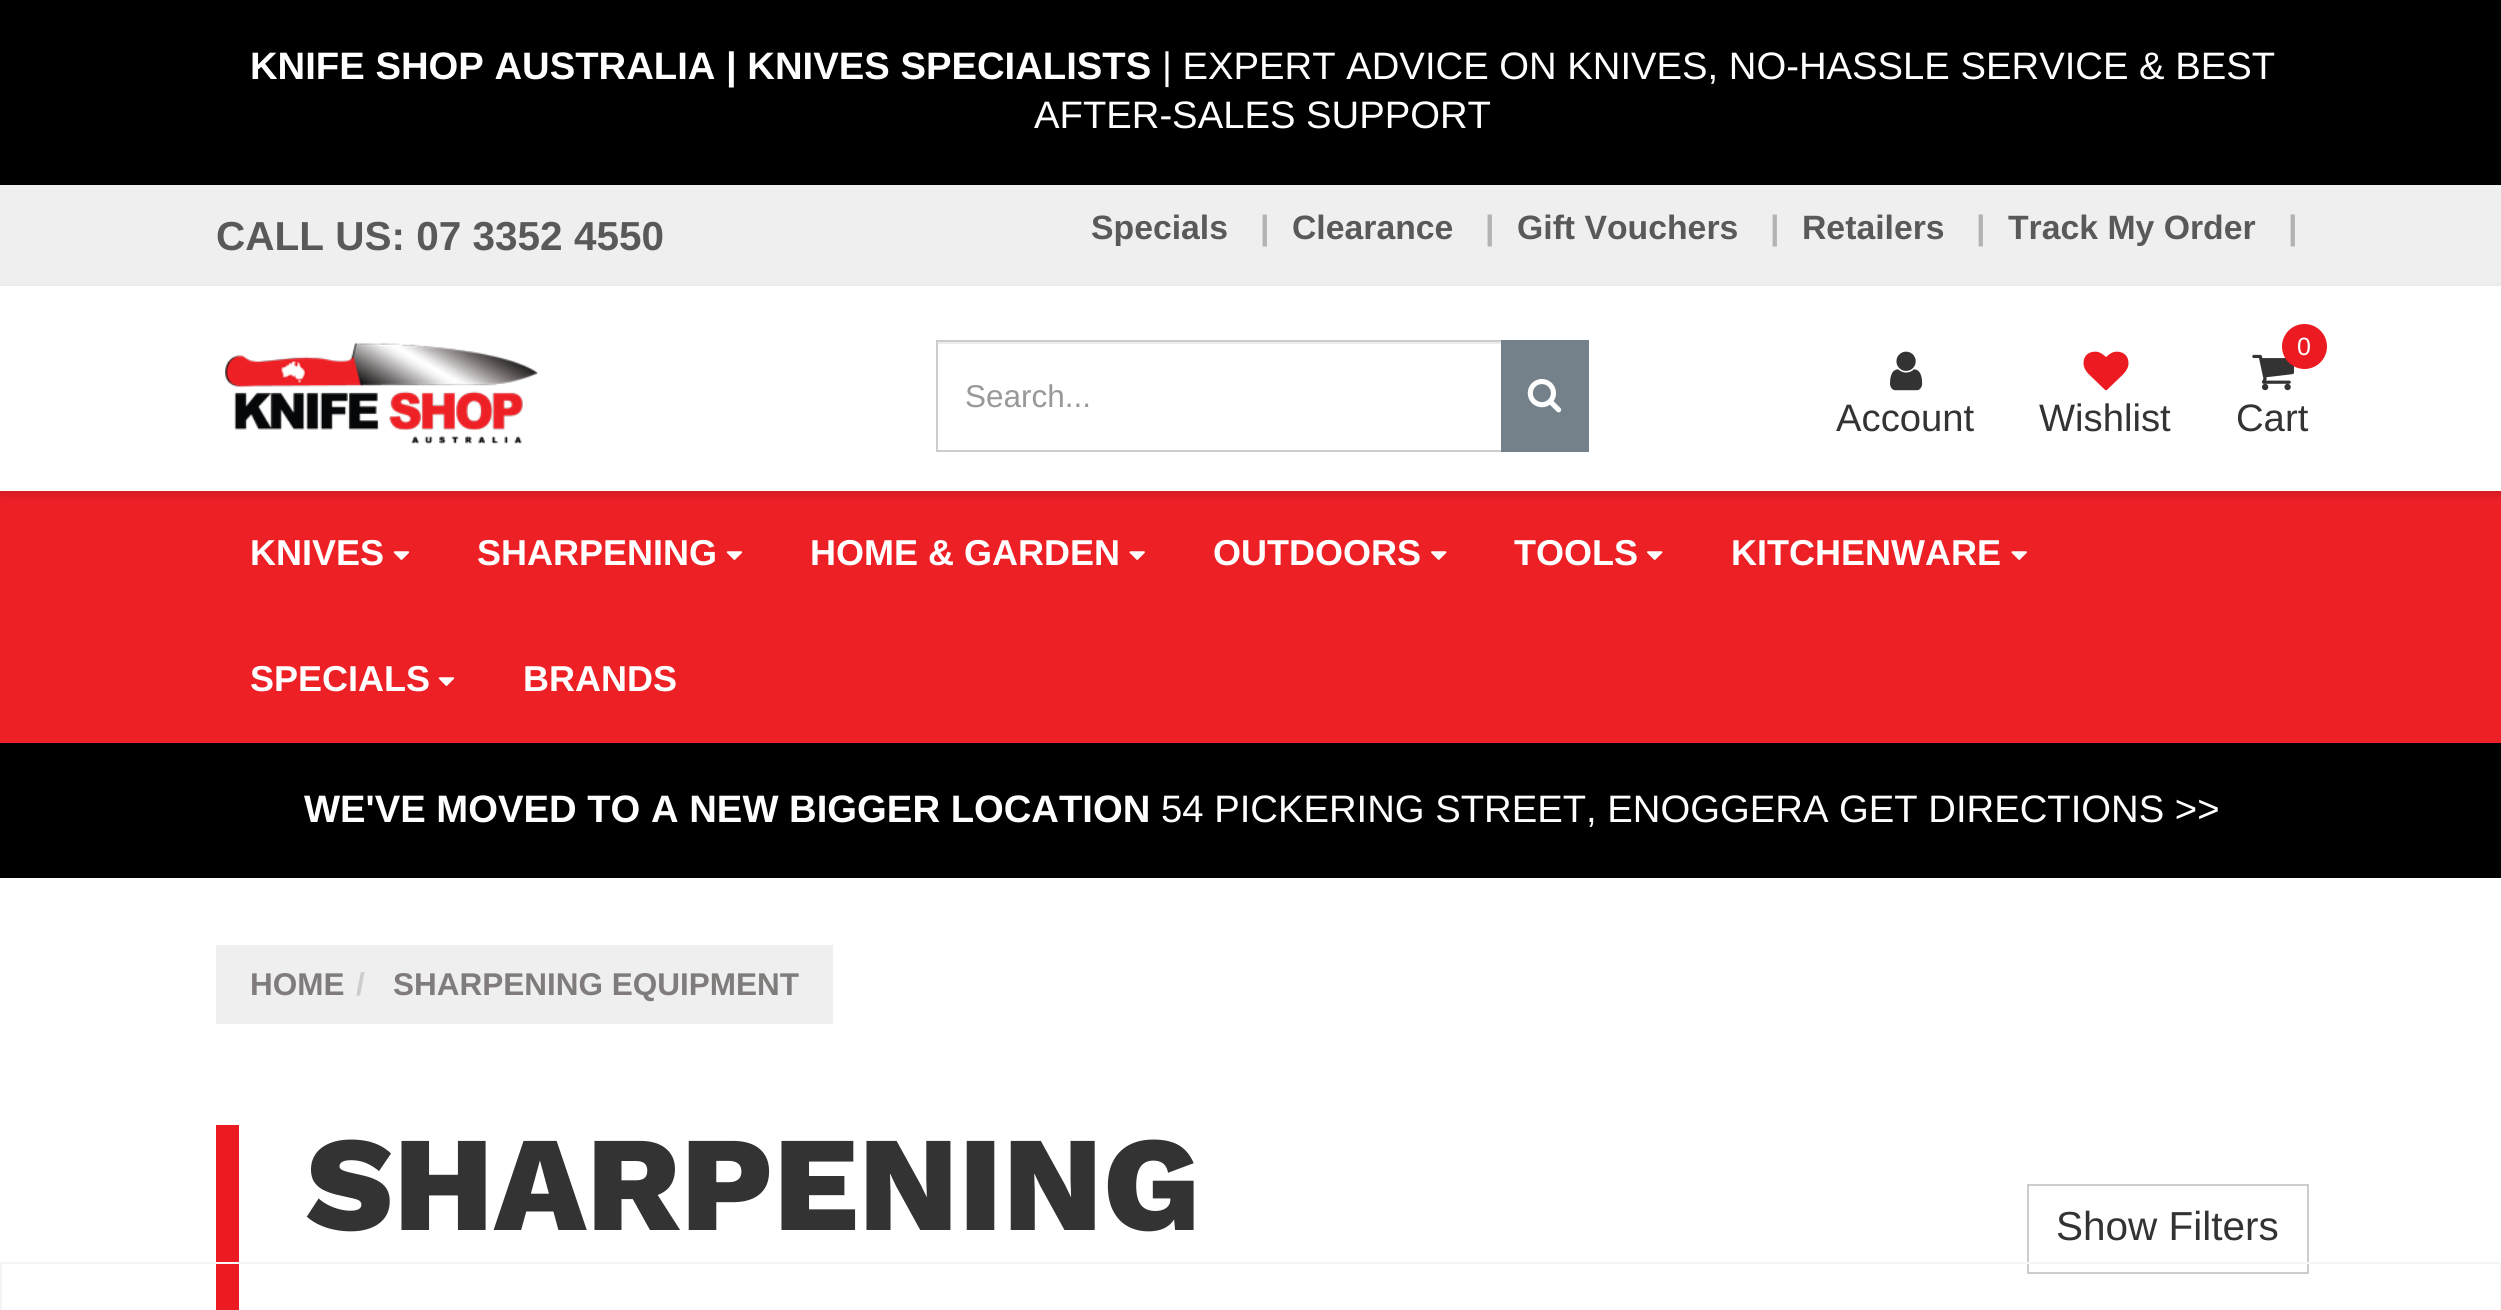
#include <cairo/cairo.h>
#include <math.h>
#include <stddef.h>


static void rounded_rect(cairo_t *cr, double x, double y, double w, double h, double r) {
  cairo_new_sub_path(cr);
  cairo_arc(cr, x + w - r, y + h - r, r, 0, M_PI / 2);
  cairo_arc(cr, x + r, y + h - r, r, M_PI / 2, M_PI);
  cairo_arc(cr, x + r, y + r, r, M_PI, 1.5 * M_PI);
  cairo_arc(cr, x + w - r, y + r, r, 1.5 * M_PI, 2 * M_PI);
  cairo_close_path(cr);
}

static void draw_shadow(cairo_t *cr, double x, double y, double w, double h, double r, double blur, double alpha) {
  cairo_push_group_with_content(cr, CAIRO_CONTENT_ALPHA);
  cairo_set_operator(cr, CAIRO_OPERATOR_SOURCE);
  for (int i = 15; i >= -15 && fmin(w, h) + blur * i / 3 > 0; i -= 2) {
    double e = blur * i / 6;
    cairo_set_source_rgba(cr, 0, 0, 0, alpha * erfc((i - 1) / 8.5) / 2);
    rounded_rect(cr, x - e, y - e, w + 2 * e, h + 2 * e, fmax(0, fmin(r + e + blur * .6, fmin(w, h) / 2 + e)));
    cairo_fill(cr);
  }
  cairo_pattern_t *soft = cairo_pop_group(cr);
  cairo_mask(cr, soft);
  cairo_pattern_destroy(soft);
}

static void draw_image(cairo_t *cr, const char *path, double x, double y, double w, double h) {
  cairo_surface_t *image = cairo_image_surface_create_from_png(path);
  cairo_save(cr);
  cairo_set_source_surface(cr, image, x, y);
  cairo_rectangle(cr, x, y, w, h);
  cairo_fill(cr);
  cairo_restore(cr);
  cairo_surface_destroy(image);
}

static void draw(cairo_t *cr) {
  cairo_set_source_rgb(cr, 1, 1, 1);
  cairo_paint(cr);
  cairo_set_source_rgb(cr, 0, 0, 0);
  cairo_rectangle(cr, 0, 0, 2501, 185);
  cairo_fill(cr);
  cairo_set_source_rgb(cr, 239 / 255.0, 239 / 255.0, 239 / 255.0);
  cairo_rectangle(cr, 0, 185, 2501, 101);
  cairo_fill(cr);
  cairo_set_source_rgb(cr, 237 / 255.0, 32 / 255.0, 38 / 255.0);
  cairo_rectangle(cr, 0, 491, 2501, 252);
  cairo_fill(cr);
  cairo_set_source_rgb(cr, 0, 0, 0);
  draw_shadow(cr, 0, 290, 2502, 205, 0, 4.5, 0.13);
  cairo_set_source_rgb(cr, 1, 1, 1);
  cairo_rectangle(cr, 0, 286, 2501, 205);
  cairo_fill(cr);
  draw_image(cr, "images/1.png", 225, 342, 313, 102);
  cairo_set_source_rgb(cr, 236 / 255.0, 236 / 255.0, 236 / 255.0);
  cairo_rectangle(cr, 938, 342, 563, 2);
  cairo_fill(cr);
  cairo_rectangle(cr, 937, 341, 565, 110);
  cairo_set_source_rgb(cr, 204 / 255.0, 204 / 255.0, 204 / 255.0);
  cairo_stroke(cr);
  cairo_set_source_rgb(cr, 116 / 255.0, 129 / 255.0, 138 / 255.0);
  cairo_rectangle(cr, 1501, 340, 88, 112);
  cairo_fill(cr);
  draw_image(cr, "images/2.png", 1527, 379, 35, 34);
  draw_image(cr, "images/3.png", 1890, 351, 33, 40);
  draw_image(cr, "images/4.png", 2083, 351, 46, 40);
  draw_image(cr, "images/5.png", 2252, 354, 43, 37);
  cairo_set_source_rgb(cr, 236 / 255.0, 27 / 255.0, 33 / 255.0);
  cairo_arc(cr, 2304.5, 346.5, 22.5, 0, 2 * M_PI);
  cairo_fill(cr);
  draw_image(cr, "images/6.png", 393, 551, 17, 9);
  draw_image(cr, "images/6.png", 726, 551, 17, 9);
  draw_image(cr, "images/7.png", 1129, 551, 16, 9);
  draw_image(cr, "images/8.png", 1431, 551, 16, 9);
  draw_image(cr, "images/8.png", 1647, 551, 16, 9);
  draw_image(cr, "images/7.png", 2011, 551, 16, 9);
  draw_image(cr, "images/6.png", 438, 677, 17, 9);
  cairo_set_source_rgb(cr, 0, 0, 0);
  cairo_rectangle(cr, 0, 743, 2501, 135);
  cairo_fill(cr);
  cairo_set_source_rgb(cr, 239 / 255.0, 239 / 255.0, 240 / 255.0);
  cairo_rectangle(cr, 216, 945, 617, 79);
  cairo_fill(cr);
  cairo_set_source_rgb(cr, 236 / 255.0, 27 / 255.0, 33 / 255.0);
  cairo_rectangle(cr, 216, 1125, 23, 185);
  cairo_fill(cr);
  cairo_rectangle(cr, 2028, 1185, 280, 88);
  cairo_set_source_rgb(cr, 204 / 255.0, 204 / 255.0, 204 / 255.0);
  cairo_stroke(cr);
  cairo_rectangle(cr, 1, 1263, 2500, 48);
  cairo_set_source_rgb(cr, 245 / 255.0, 245 / 255.0, 245 / 255.0);
  cairo_stroke(cr);
  cairo_select_font_face(cr, "Liberation Sans", CAIRO_FONT_SLANT_NORMAL, CAIRO_FONT_WEIGHT_BOLD);
  cairo_set_font_size(cr, 38.25);
  cairo_set_source_rgb(cr, 1, 1, 1);
  cairo_move_to(cr, 250, 79);
  cairo_show_text(cr, "KNIFE SHOP AUSTRALIA | KNIVES SPECIALISTS");
  cairo_select_font_face(cr, "Liberation Sans", CAIRO_FONT_SLANT_NORMAL, CAIRO_FONT_WEIGHT_NORMAL);
  cairo_move_to(cr, 1162, 79);
  cairo_show_text(cr, "| EXPERT ADVICE ON KNIVES, NO-HASSLE SERVICE & BEST");
  cairo_move_to(cr, 1034, 128);
  cairo_show_text(cr, "AFTER-SALES SUPPORT");
  cairo_select_font_face(cr, "Liberation Sans", CAIRO_FONT_SLANT_NORMAL, CAIRO_FONT_WEIGHT_BOLD);
  cairo_set_font_size(cr, 40.5);
  cairo_set_source_rgb(cr, 89 / 255.0, 89 / 255.0, 89 / 255.0);
  cairo_move_to(cr, 216, 250);
  cairo_show_text(cr, "CALL US: 07 3352 4550");
  cairo_set_font_size(cr, 33.75);
  cairo_move_to(cr, 1091, 239);
  cairo_show_text(cr, "Specials");
  cairo_set_source_rgb(cr, 179 / 255.0, 179 / 255.0, 179 / 255.0);
  cairo_move_to(cr, 1260, 239);
  cairo_show_text(cr, "|");
  cairo_set_source_rgb(cr, 89 / 255.0, 89 / 255.0, 89 / 255.0);
  cairo_move_to(cr, 1292, 239);
  cairo_show_text(cr, "Clearance");
  cairo_set_source_rgb(cr, 179 / 255.0, 179 / 255.0, 179 / 255.0);
  cairo_move_to(cr, 1485, 239);
  cairo_show_text(cr, "|");
  cairo_set_source_rgb(cr, 89 / 255.0, 89 / 255.0, 89 / 255.0);
  cairo_move_to(cr, 1517, 239);
  cairo_show_text(cr, "Gift Vouchers");
  cairo_set_source_rgb(cr, 179 / 255.0, 179 / 255.0, 179 / 255.0);
  cairo_move_to(cr, 1770, 239);
  cairo_show_text(cr, "|");
  cairo_set_source_rgb(cr, 89 / 255.0, 89 / 255.0, 89 / 255.0);
  cairo_move_to(cr, 1802, 239);
  cairo_show_text(cr, "Retailers");
  cairo_set_source_rgb(cr, 179 / 255.0, 179 / 255.0, 179 / 255.0);
  cairo_move_to(cr, 1976, 239);
  cairo_show_text(cr, "|");
  cairo_set_source_rgb(cr, 89 / 255.0, 89 / 255.0, 89 / 255.0);
  cairo_move_to(cr, 2008, 239);
  cairo_show_text(cr, "Track My Order");
  cairo_set_source_rgb(cr, 179 / 255.0, 179 / 255.0, 179 / 255.0);
  cairo_move_to(cr, 2288, 239);
  cairo_show_text(cr, "|");
  cairo_select_font_face(cr, "Liberation Sans", CAIRO_FONT_SLANT_NORMAL, CAIRO_FONT_WEIGHT_NORMAL);
  cairo_set_font_size(cr, 31.5);
  cairo_set_source_rgb(cr, 153 / 255.0, 153 / 255.0, 153 / 255.0);
  cairo_move_to(cr, 965, 407);
  cairo_show_text(cr, "Search...");
  cairo_set_font_size(cr, 38.25);
  cairo_set_source_rgb(cr, 51 / 255.0, 51 / 255.0, 51 / 255.0);
  cairo_move_to(cr, 1836, 431);
  cairo_show_text(cr, "Account");
  cairo_move_to(cr, 2039, 431);
  cairo_show_text(cr, "Wishlist");
  cairo_set_font_size(cr, 25);
  cairo_set_source_rgb(cr, 1, 1, 1);
  cairo_move_to(cr, 2297, 355);
  cairo_show_text(cr, "0");
  cairo_set_font_size(cr, 38.25);
  cairo_set_source_rgb(cr, 51 / 255.0, 51 / 255.0, 51 / 255.0);
  cairo_move_to(cr, 2236, 431);
  cairo_show_text(cr, "Cart");
  cairo_select_font_face(cr, "Liberation Sans", CAIRO_FONT_SLANT_NORMAL, CAIRO_FONT_WEIGHT_BOLD);
  cairo_set_font_size(cr, 36);
  cairo_set_source_rgb(cr, 1, 1, 1);
  cairo_move_to(cr, 250, 565);
  cairo_show_text(cr, "KNIVES");
  cairo_move_to(cr, 477, 565);
  cairo_show_text(cr, "SHARPENING");
  cairo_move_to(cr, 810, 565);
  cairo_show_text(cr, "HOME & GARDEN");
  cairo_move_to(cr, 1213, 565);
  cairo_show_text(cr, "OUTDOORS");
  cairo_move_to(cr, 1514, 565);
  cairo_show_text(cr, "TOOLS");
  cairo_move_to(cr, 1731, 565);
  cairo_show_text(cr, "KITCHENWARE");
  cairo_move_to(cr, 250, 691);
  cairo_show_text(cr, "SPECIALS");
  cairo_move_to(cr, 523, 691);
  cairo_show_text(cr, "BRANDS");
  cairo_set_font_size(cr, 38.25);
  cairo_move_to(cr, 304, 822);
  cairo_show_text(cr, "WE'VE MOVED TO A NEW BIGGER LOCATION");
  cairo_select_font_face(cr, "Liberation Sans", CAIRO_FONT_SLANT_NORMAL, CAIRO_FONT_WEIGHT_NORMAL);
  cairo_move_to(cr, 1161, 822);
  cairo_show_text(cr, "54 PICKERING STREET, ENOGGERA GET DIRECTIONS >>");
  cairo_select_font_face(cr, "Liberation Sans", CAIRO_FONT_SLANT_NORMAL, CAIRO_FONT_WEIGHT_BOLD);
  cairo_set_font_size(cr, 31.5);
  cairo_set_source_rgb(cr, 128 / 255.0, 124 / 255.0, 124 / 255.0);
  cairo_move_to(cr, 250, 995);
  cairo_show_text(cr, "HOME");
  cairo_set_source_rgb(cr, 204 / 255.0, 204 / 255.0, 204 / 255.0);
  cairo_move_to(cr, 356, 995);
  cairo_show_text(cr, "/");
  cairo_set_source_rgb(cr, 128 / 255.0, 124 / 255.0, 124 / 255.0);
  cairo_move_to(cr, 393, 995);
  cairo_show_text(cr, "SHARPENING EQUIPMENT");
  cairo_select_font_face(cr, "Work Sans ExtraBold", CAIRO_FONT_SLANT_NORMAL, CAIRO_FONT_WEIGHT_NORMAL);
  cairo_set_font_size(cr, 135);
  cairo_set_source_rgb(cr, 51 / 255.0, 51 / 255.0, 51 / 255.0);
  cairo_move_to(cr, 306, 1230);
  cairo_show_text(cr, "SHARPENING");
  cairo_select_font_face(cr, "Liberation Sans", CAIRO_FONT_SLANT_NORMAL, CAIRO_FONT_WEIGHT_NORMAL);
  cairo_set_font_size(cr, 40.5);
  cairo_move_to(cr, 2056, 1240);
  cairo_show_text(cr, "Show Filters");
}

int main(void) {
  cairo_surface_t *surface = cairo_image_surface_create(CAIRO_FORMAT_RGB24, 2501, 1310);
  cairo_t *cr = cairo_create(surface);
  cairo_font_options_t *options = cairo_font_options_create();
  cairo_font_options_set_hint_metrics(options, CAIRO_HINT_METRICS_OFF);
  cairo_font_options_set_hint_style(options, CAIRO_HINT_STYLE_NONE);
  cairo_set_font_options(cr, options);
  cairo_set_miter_limit(cr, 4);
  draw(cr);
  cairo_surface_write_to_png(surface, "out.png");
  cairo_font_options_destroy(options);
  cairo_destroy(cr);
  cairo_surface_destroy(surface);
  return 0;
}
